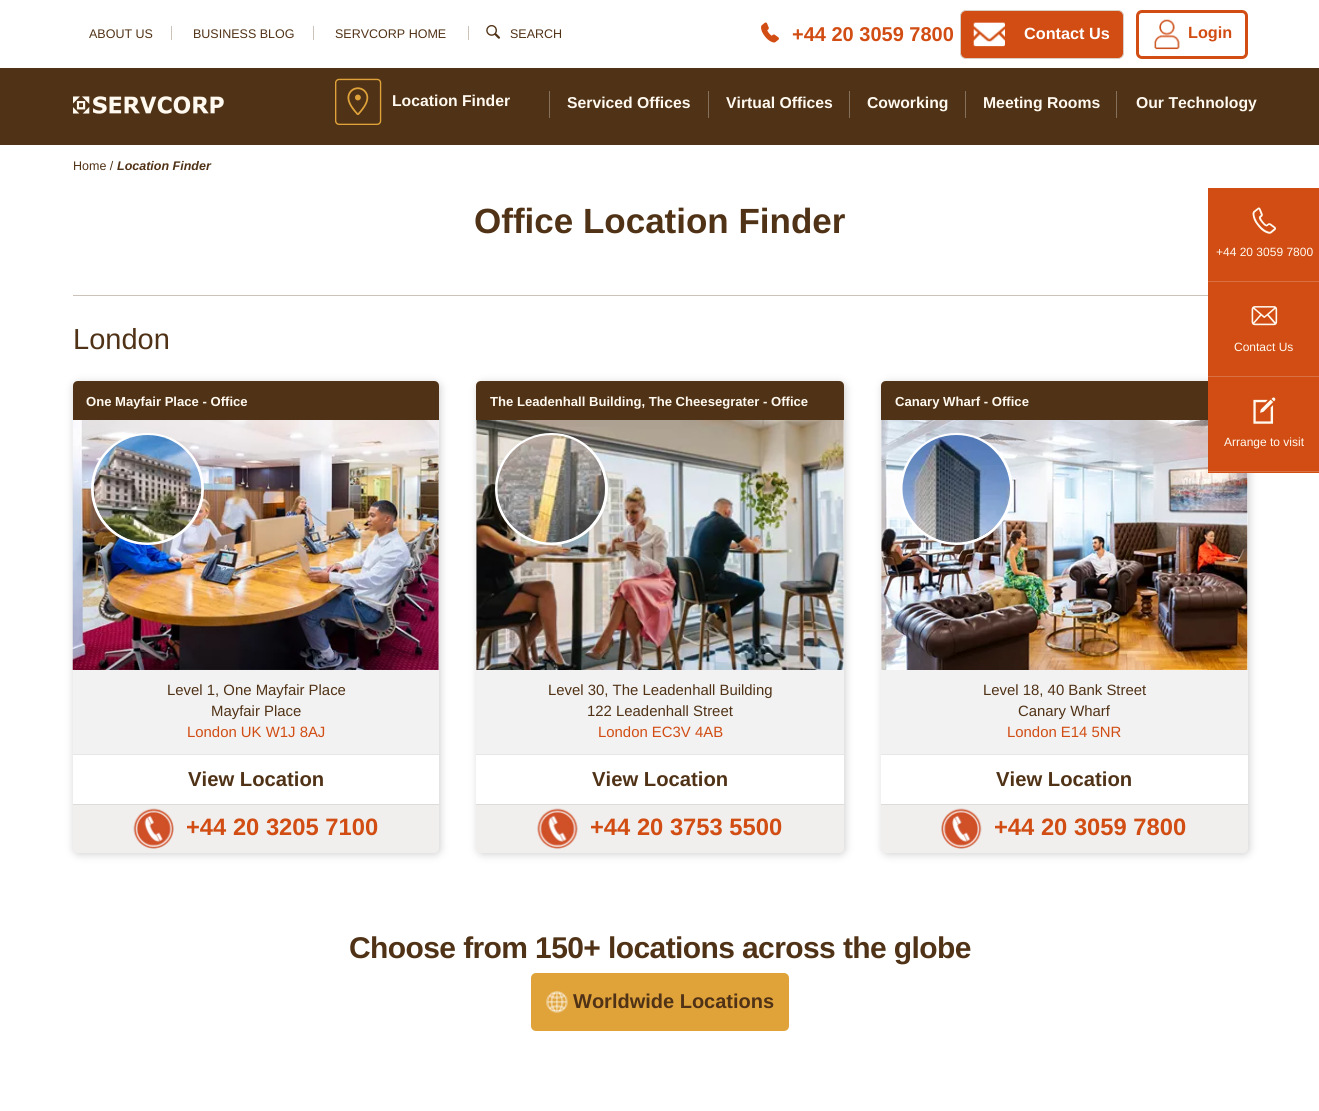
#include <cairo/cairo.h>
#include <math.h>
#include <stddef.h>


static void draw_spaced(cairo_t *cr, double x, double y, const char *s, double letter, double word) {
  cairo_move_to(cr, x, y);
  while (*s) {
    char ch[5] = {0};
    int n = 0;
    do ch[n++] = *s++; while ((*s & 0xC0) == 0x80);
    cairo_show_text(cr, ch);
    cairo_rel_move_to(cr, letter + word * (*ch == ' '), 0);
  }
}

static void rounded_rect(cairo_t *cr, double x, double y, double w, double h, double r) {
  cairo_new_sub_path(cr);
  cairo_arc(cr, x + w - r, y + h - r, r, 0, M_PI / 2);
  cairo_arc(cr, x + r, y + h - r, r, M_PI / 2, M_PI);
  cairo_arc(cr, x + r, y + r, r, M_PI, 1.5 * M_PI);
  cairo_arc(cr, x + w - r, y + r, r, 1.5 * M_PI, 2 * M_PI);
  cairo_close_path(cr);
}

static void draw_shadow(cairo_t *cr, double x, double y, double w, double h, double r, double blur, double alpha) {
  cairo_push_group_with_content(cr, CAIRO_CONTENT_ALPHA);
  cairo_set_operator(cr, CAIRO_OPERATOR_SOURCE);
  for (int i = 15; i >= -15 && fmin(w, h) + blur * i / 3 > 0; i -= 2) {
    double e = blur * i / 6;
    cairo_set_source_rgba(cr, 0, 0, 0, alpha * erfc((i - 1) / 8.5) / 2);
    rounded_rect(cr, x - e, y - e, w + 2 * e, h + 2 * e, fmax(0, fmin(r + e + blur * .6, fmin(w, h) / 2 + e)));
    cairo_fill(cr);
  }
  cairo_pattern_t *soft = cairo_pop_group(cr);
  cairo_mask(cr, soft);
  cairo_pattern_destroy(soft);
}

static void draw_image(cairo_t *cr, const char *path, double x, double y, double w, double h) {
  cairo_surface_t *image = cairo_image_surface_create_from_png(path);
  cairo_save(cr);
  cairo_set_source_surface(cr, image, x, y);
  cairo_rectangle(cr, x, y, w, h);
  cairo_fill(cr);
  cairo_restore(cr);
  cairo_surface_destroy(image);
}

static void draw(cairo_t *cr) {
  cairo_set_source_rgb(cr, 80 / 255.0, 50 / 255.0, 22 / 255.0);
  cairo_paint(cr);
  cairo_set_source_rgb(cr, 1, 1, 1);
  cairo_rectangle(cr, 0, 0, 1319, 68);
  cairo_fill(cr);
  cairo_set_source_rgb(cr, 203 / 255.0, 194 / 255.0, 185 / 255.0);
  cairo_rectangle(cr, 171, 26, 1, 14);
  cairo_fill(cr);
  cairo_rectangle(cr, 313, 26, 1, 14);
  cairo_fill(cr);
  cairo_rectangle(cr, 468, 26, 1, 14);
  cairo_fill(cr);
  draw_image(cr, "images/1.png", 486, 25, 14, 14);
  draw_image(cr, "images/2.png", 761, 22, 18, 21);
  cairo_set_source_rgb(cr, 209 / 255.0, 77 / 255.0, 19 / 255.0);
  rounded_rect(cr, 960.5, 10.5, 163, 48, 5.5);
  cairo_fill_preserve(cr);
  cairo_set_source_rgb(cr, 216 / 255.0, 208 / 255.0, 199 / 255.0);
  cairo_set_line_width(cr, 1);
  cairo_stroke(cr);
  draw_image(cr, "images/3.png", 973, 22, 32, 25);
  rounded_rect(cr, 1137.5, 11.5, 109, 46, 4.5);
  cairo_set_source_rgb(cr, 209 / 255.0, 77 / 255.0, 19 / 255.0);
  cairo_set_line_width(cr, 3);
  cairo_stroke(cr);
  draw_image(cr, "images/4.png", 1154, 19, 26, 31);
  draw_image(cr, "images/5.png", 73, 96, 151, 18);
  draw_image(cr, "images/6.png", 335, 78, 47, 47);
  cairo_set_source_rgb(cr, 133 / 255.0, 112 / 255.0, 92 / 255.0);
  cairo_rectangle(cr, 549, 91, 1, 27);
  cairo_fill(cr);
  cairo_rectangle(cr, 708, 91, 1, 27);
  cairo_fill(cr);
  cairo_rectangle(cr, 849, 91, 1, 27);
  cairo_fill(cr);
  cairo_rectangle(cr, 965, 91, 1, 27);
  cairo_fill(cr);
  cairo_rectangle(cr, 1116, 91, 1, 27);
  cairo_fill(cr);
  cairo_set_source_rgb(cr, 1, 1, 1);
  cairo_rectangle(cr, 0, 145, 1319, 966);
  cairo_fill(cr);
  cairo_set_source_rgb(cr, 203 / 255.0, 194 / 255.0, 185 / 255.0);
  cairo_rectangle(cr, 73, 295, 1135, 1);
  cairo_fill(cr);
  cairo_set_source_rgb(cr, 0, 0, 0);
  draw_shadow(cr, 74, 383, 366, 471, 5, 4.5, 0.2);
  cairo_set_source_rgb(cr, 80 / 255.0, 50 / 255.0, 22 / 255.0);
  cairo_new_path(cr);
  cairo_move_to(cr, 78, 381);
  cairo_line_to(cr, 434, 381);
  cairo_curve_to(cr, 437, 381, 439, 383, 439, 386);
  cairo_line_to(cr, 439, 420);
  cairo_line_to(cr, 73, 420);
  cairo_line_to(cr, 73, 386);
  cairo_curve_to(cr, 73, 383, 75, 381, 78, 381);
  cairo_close_path(cr);
  cairo_fill(cr);
  cairo_set_source_rgb(cr, 242 / 255.0, 242 / 255.0, 242 / 255.0);
  cairo_rectangle(cr, 73, 420, 366, 334);
  cairo_fill(cr);
  cairo_set_source_rgb(cr, 230 / 255.0, 230 / 255.0, 230 / 255.0);
  cairo_rectangle(cr, 73, 754, 366, 1);
  cairo_fill(cr);
  draw_image(cr, "images/7.png", 72, 420, 367, 250);
  rounded_rect(cr, 92.5, 434.5, 110, 109, 54.5);
  cairo_set_source_rgb(cr, 1, 1, 1);
  cairo_stroke(cr);
  draw_image(cr, "images/8.png", 93, 435, 109, 108);
  cairo_rectangle(cr, 73, 755, 366, 49);
  cairo_fill(cr);
  cairo_set_source_rgb(cr, 240 / 255.0, 239 / 255.0, 237 / 255.0);
  cairo_new_path(cr);
  cairo_move_to(cr, 73, 804);
  cairo_line_to(cr, 439, 804);
  cairo_line_to(cr, 439, 848);
  cairo_curve_to(cr, 439, 851, 437, 853, 434, 853);
  cairo_line_to(cr, 78, 853);
  cairo_curve_to(cr, 75, 853, 73, 851, 73, 848);
  cairo_close_path(cr);
  cairo_fill(cr);
  cairo_set_source_rgb(cr, 220 / 255.0, 219 / 255.0, 217 / 255.0);
  cairo_rectangle(cr, 73, 804, 366, 1);
  cairo_fill(cr);
  draw_image(cr, "images/9.png", 133, 808, 41, 41);
  cairo_set_source_rgb(cr, 0, 0, 0);
  draw_shadow(cr, 478, 383, 367, 471, 5, 4.5, 0.2);
  cairo_set_source_rgb(cr, 80 / 255.0, 50 / 255.0, 22 / 255.0);
  cairo_new_path(cr);
  cairo_move_to(cr, 481, 381);
  cairo_line_to(cr, 839, 381);
  cairo_curve_to(cr, 842, 381, 844, 383, 844, 386);
  cairo_line_to(cr, 844, 420);
  cairo_line_to(cr, 476, 420);
  cairo_line_to(cr, 476, 386);
  cairo_curve_to(cr, 476, 383, 478, 381, 481, 381);
  cairo_close_path(cr);
  cairo_fill(cr);
  cairo_set_source_rgb(cr, 242 / 255.0, 242 / 255.0, 242 / 255.0);
  cairo_rectangle(cr, 476, 420, 368, 334);
  cairo_fill(cr);
  cairo_set_source_rgb(cr, 230 / 255.0, 230 / 255.0, 230 / 255.0);
  cairo_rectangle(cr, 476, 754, 368, 1);
  cairo_fill(cr);
  draw_image(cr, "images/10.png", 476, 420, 368, 250);
  rounded_rect(cr, 496.5, 434.5, 110, 109, 54.5);
  cairo_set_source_rgb(cr, 1, 1, 1);
  cairo_stroke(cr);
  draw_image(cr, "images/11.png", 497, 435, 108, 108);
  cairo_rectangle(cr, 476, 755, 368, 49);
  cairo_fill(cr);
  cairo_set_source_rgb(cr, 240 / 255.0, 239 / 255.0, 237 / 255.0);
  cairo_new_path(cr);
  cairo_move_to(cr, 476, 804);
  cairo_line_to(cr, 844, 804);
  cairo_line_to(cr, 844, 848);
  cairo_curve_to(cr, 844, 851, 842, 853, 839, 853);
  cairo_line_to(cr, 481, 853);
  cairo_curve_to(cr, 478, 853, 476, 851, 476, 848);
  cairo_close_path(cr);
  cairo_fill(cr);
  cairo_set_source_rgb(cr, 220 / 255.0, 219 / 255.0, 217 / 255.0);
  cairo_rectangle(cr, 476, 804, 368, 1);
  cairo_fill(cr);
  draw_image(cr, "images/12.png", 537, 808, 41, 41);
  cairo_set_source_rgb(cr, 0, 0, 0);
  draw_shadow(cr, 883, 383, 366, 471, 5, 4.5, 0.2);
  cairo_set_source_rgb(cr, 80 / 255.0, 50 / 255.0, 22 / 255.0);
  cairo_new_path(cr);
  cairo_move_to(cr, 886, 381);
  cairo_line_to(cr, 1243, 381);
  cairo_curve_to(cr, 1246, 381, 1248, 383, 1248, 386);
  cairo_line_to(cr, 1248, 420);
  cairo_line_to(cr, 881, 420);
  cairo_line_to(cr, 881, 386);
  cairo_curve_to(cr, 881, 383, 883, 381, 886, 381);
  cairo_close_path(cr);
  cairo_fill(cr);
  cairo_set_source_rgb(cr, 242 / 255.0, 242 / 255.0, 242 / 255.0);
  cairo_rectangle(cr, 881, 420, 367, 334);
  cairo_fill(cr);
  cairo_set_source_rgb(cr, 230 / 255.0, 230 / 255.0, 230 / 255.0);
  cairo_rectangle(cr, 881, 754, 367, 1);
  cairo_fill(cr);
  draw_image(cr, "images/13.png", 881, 420, 367, 250);
  rounded_rect(cr, 901.5, 434.5, 110, 109, 54.5);
  cairo_set_source_rgb(cr, 1, 1, 1);
  cairo_stroke(cr);
  draw_image(cr, "images/14.png", 902, 435, 108, 108);
  cairo_rectangle(cr, 881, 755, 367, 49);
  cairo_fill(cr);
  cairo_set_source_rgb(cr, 240 / 255.0, 239 / 255.0, 237 / 255.0);
  cairo_new_path(cr);
  cairo_move_to(cr, 881, 804);
  cairo_line_to(cr, 1248, 804);
  cairo_line_to(cr, 1248, 848);
  cairo_curve_to(cr, 1248, 851, 1246, 853, 1243, 853);
  cairo_line_to(cr, 886, 853);
  cairo_curve_to(cr, 883, 853, 881, 851, 881, 848);
  cairo_close_path(cr);
  cairo_fill(cr);
  cairo_set_source_rgb(cr, 220 / 255.0, 219 / 255.0, 217 / 255.0);
  cairo_rectangle(cr, 881, 804, 367, 1);
  cairo_fill(cr);
  draw_image(cr, "images/15.png", 941, 808, 41, 41);
  cairo_set_source_rgb(cr, 209 / 255.0, 77 / 255.0, 19 / 255.0);
  cairo_rectangle(cr, 1208, 188, 111, 285);
  cairo_fill(cr);
  cairo_set_source_rgb(cr, 218 / 255.0, 113 / 255.0, 66 / 255.0);
  cairo_rectangle(cr, 1208, 281, 111, 1);
  cairo_fill(cr);
  draw_image(cr, "images/16.png", 1252, 207, 24, 27);
  cairo_rectangle(cr, 1208, 376, 111, 1);
  cairo_fill(cr);
  draw_image(cr, "images/17.png", 1251, 306, 27, 20);
  cairo_rectangle(cr, 1208, 471, 111, 1);
  cairo_fill(cr);
  draw_image(cr, "images/18.png", 1253, 397, 23, 27);
  cairo_set_source_rgb(cr, 224 / 255.0, 163 / 255.0, 58 / 255.0);
  rounded_rect(cr, 531, 973, 258, 58, 5);
  cairo_fill(cr);
  draw_image(cr, "images/19.png", 546, 991, 22, 22);
  cairo_select_font_face(cr, "Liberation Sans", CAIRO_FONT_SLANT_NORMAL, CAIRO_FONT_WEIGHT_NORMAL);
  cairo_set_font_size(cr, 12.5);
  cairo_set_source_rgb(cr, 80 / 255.0, 50 / 255.0, 22 / 255.0);
  cairo_move_to(cr, 89, 38);
  cairo_show_text(cr, "ABOUT US");
  cairo_move_to(cr, 193, 38);
  cairo_show_text(cr, "BUSINESS BLOG");
  cairo_move_to(cr, 335, 38);
  cairo_show_text(cr, "SERVCORP HOME");
  cairo_move_to(cr, 510, 38);
  cairo_show_text(cr, "SEARCH");
  cairo_select_font_face(cr, "Liberation Sans", CAIRO_FONT_SLANT_NORMAL, CAIRO_FONT_WEIGHT_BOLD);
  cairo_set_font_size(cr, 20);
  cairo_set_source_rgb(cr, 209 / 255.0, 77 / 255.0, 19 / 255.0);
  cairo_move_to(cr, 792, 41);
  cairo_show_text(cr, "+44 20 3059 7800");
  cairo_set_font_size(cr, 16.25);
  cairo_set_source_rgb(cr, 1, 1, 1);
  cairo_move_to(cr, 1024, 39);
  cairo_show_text(cr, "Contact Us");
  cairo_set_source_rgb(cr, 209 / 255.0, 77 / 255.0, 19 / 255.0);
  cairo_move_to(cr, 1188, 38);
  cairo_show_text(cr, "Login");
  cairo_set_font_size(cr, 15.75);
  cairo_set_source_rgb(cr, 1, 249 / 255.0, 239 / 255.0);
  cairo_move_to(cr, 392, 106);
  cairo_show_text(cr, "Location Finder");
  cairo_move_to(cr, 567, 108);
  cairo_show_text(cr, "Serviced Offices");
  cairo_move_to(cr, 726, 108);
  cairo_show_text(cr, "Virtual Offices");
  cairo_move_to(cr, 867, 108);
  cairo_show_text(cr, "Coworking");
  cairo_move_to(cr, 983, 108);
  cairo_show_text(cr, "Meeting Rooms");
  cairo_move_to(cr, 1136, 108);
  cairo_show_text(cr, "Our Technology");
  cairo_select_font_face(cr, "Liberation Sans", CAIRO_FONT_SLANT_NORMAL, CAIRO_FONT_WEIGHT_NORMAL);
  cairo_set_font_size(cr, 12.5);
  cairo_set_source_rgb(cr, 80 / 255.0, 50 / 255.0, 22 / 255.0);
  cairo_move_to(cr, 73, 170);
  cairo_show_text(cr, "Home /");
  cairo_select_font_face(cr, "Liberation Sans", CAIRO_FONT_SLANT_ITALIC, CAIRO_FONT_WEIGHT_BOLD);
  cairo_move_to(cr, 117, 170);
  cairo_show_text(cr, "Location Finder");
  cairo_select_font_face(cr, "Liberation Sans", CAIRO_FONT_SLANT_NORMAL, CAIRO_FONT_WEIGHT_BOLD);
  cairo_set_font_size(cr, 35);
  cairo_move_to(cr, 474, 233);
  cairo_show_text(cr, "Office Location Finder");
  cairo_select_font_face(cr, "Liberation Sans", CAIRO_FONT_SLANT_NORMAL, CAIRO_FONT_WEIGHT_NORMAL);
  cairo_set_font_size(cr, 29);
  cairo_move_to(cr, 73, 349);
  cairo_show_text(cr, "London");
  cairo_select_font_face(cr, "Liberation Sans", CAIRO_FONT_SLANT_NORMAL, CAIRO_FONT_WEIGHT_BOLD);
  cairo_set_font_size(cr, 13.1);
  cairo_set_source_rgb(cr, 1, 249 / 255.0, 239 / 255.0);
  cairo_move_to(cr, 86, 406);
  cairo_show_text(cr, "One Mayfair Place - Office");
  cairo_select_font_face(cr, "Liberation Sans", CAIRO_FONT_SLANT_NORMAL, CAIRO_FONT_WEIGHT_NORMAL);
  cairo_set_font_size(cr, 14.9);
  cairo_set_source_rgb(cr, 80 / 255.0, 50 / 255.0, 22 / 255.0);
  cairo_move_to(cr, 167, 695);
  cairo_show_text(cr, "Level 1, One Mayfair Place");
  cairo_move_to(cr, 211, 716);
  cairo_show_text(cr, "Mayfair Place");
  cairo_set_source_rgb(cr, 209 / 255.0, 77 / 255.0, 19 / 255.0);
  cairo_move_to(cr, 187, 737);
  cairo_show_text(cr, "London UK W1J 8AJ");
  cairo_select_font_face(cr, "Liberation Sans", CAIRO_FONT_SLANT_NORMAL, CAIRO_FONT_WEIGHT_BOLD);
  cairo_set_font_size(cr, 20.25);
  cairo_set_source_rgb(cr, 80 / 255.0, 50 / 255.0, 22 / 255.0);
  cairo_move_to(cr, 188, 786);
  cairo_show_text(cr, "View Location");
  cairo_set_font_size(cr, 23.75);
  cairo_set_source_rgb(cr, 209 / 255.0, 77 / 255.0, 19 / 255.0);
  cairo_move_to(cr, 186, 835);
  cairo_show_text(cr, "+44 20 3205 7100");
  cairo_set_font_size(cr, 13.1);
  cairo_set_source_rgb(cr, 1, 249 / 255.0, 239 / 255.0);
  cairo_move_to(cr, 490, 406);
  cairo_show_text(cr, "The Leadenhall Building, The Cheesegrater - Office");
  cairo_select_font_face(cr, "Liberation Sans", CAIRO_FONT_SLANT_NORMAL, CAIRO_FONT_WEIGHT_NORMAL);
  cairo_set_font_size(cr, 14.9);
  cairo_set_source_rgb(cr, 80 / 255.0, 50 / 255.0, 22 / 255.0);
  cairo_move_to(cr, 548, 695);
  cairo_show_text(cr, "Level 30, The Leadenhall Building");
  cairo_move_to(cr, 587, 716);
  cairo_show_text(cr, "122 Leadenhall Street");
  cairo_set_source_rgb(cr, 209 / 255.0, 77 / 255.0, 19 / 255.0);
  cairo_move_to(cr, 598, 737);
  cairo_show_text(cr, "London EC3V 4AB");
  cairo_select_font_face(cr, "Liberation Sans", CAIRO_FONT_SLANT_NORMAL, CAIRO_FONT_WEIGHT_BOLD);
  cairo_set_font_size(cr, 20.25);
  cairo_set_source_rgb(cr, 80 / 255.0, 50 / 255.0, 22 / 255.0);
  cairo_move_to(cr, 592, 786);
  cairo_show_text(cr, "View Location");
  cairo_set_font_size(cr, 23.75);
  cairo_set_source_rgb(cr, 209 / 255.0, 77 / 255.0, 19 / 255.0);
  cairo_move_to(cr, 590, 835);
  cairo_show_text(cr, "+44 20 3753 5500");
  cairo_set_font_size(cr, 13.1);
  cairo_set_source_rgb(cr, 1, 249 / 255.0, 239 / 255.0);
  cairo_move_to(cr, 895, 406);
  cairo_show_text(cr, "Canary Wharf - Office");
  cairo_select_font_face(cr, "Liberation Sans", CAIRO_FONT_SLANT_NORMAL, CAIRO_FONT_WEIGHT_NORMAL);
  cairo_set_font_size(cr, 14.9);
  cairo_set_source_rgb(cr, 80 / 255.0, 50 / 255.0, 22 / 255.0);
  cairo_move_to(cr, 983, 695);
  cairo_show_text(cr, "Level 18, 40 Bank Street");
  cairo_move_to(cr, 1018, 716);
  cairo_show_text(cr, "Canary Wharf");
  cairo_set_source_rgb(cr, 209 / 255.0, 77 / 255.0, 19 / 255.0);
  cairo_move_to(cr, 1007, 737);
  cairo_show_text(cr, "London E14 5NR");
  cairo_select_font_face(cr, "Liberation Sans", CAIRO_FONT_SLANT_NORMAL, CAIRO_FONT_WEIGHT_BOLD);
  cairo_set_font_size(cr, 20.25);
  cairo_set_source_rgb(cr, 80 / 255.0, 50 / 255.0, 22 / 255.0);
  cairo_move_to(cr, 996, 786);
  cairo_show_text(cr, "View Location");
  cairo_set_font_size(cr, 23.75);
  cairo_set_source_rgb(cr, 209 / 255.0, 77 / 255.0, 19 / 255.0);
  cairo_move_to(cr, 994, 835);
  cairo_show_text(cr, "+44 20 3059 7800");
  cairo_select_font_face(cr, "Liberation Sans", CAIRO_FONT_SLANT_NORMAL, CAIRO_FONT_WEIGHT_NORMAL);
  cairo_set_font_size(cr, 12);
  cairo_set_source_rgb(cr, 1, 249 / 255.0, 239 / 255.0);
  cairo_move_to(cr, 1216, 256);
  cairo_show_text(cr, "+44 20 3059 7800");
  cairo_move_to(cr, 1234, 351);
  cairo_show_text(cr, "Contact Us");
  cairo_move_to(cr, 1224, 446);
  cairo_show_text(cr, "Arrange to visit");
  cairo_select_font_face(cr, "Liberation Sans", CAIRO_FONT_SLANT_NORMAL, CAIRO_FONT_WEIGHT_BOLD);
  cairo_set_font_size(cr, 30);
  cairo_set_source_rgb(cr, 80 / 255.0, 50 / 255.0, 22 / 255.0);
  draw_spaced(cr, 349, 958, "Choose from 150+ locations across the globe", -0.6, 0);
  cairo_set_font_size(cr, 20);
  cairo_move_to(cr, 573, 1008);
  cairo_show_text(cr, "Worldwide Locations");
}

int main(void) {
  cairo_surface_t *surface = cairo_image_surface_create(CAIRO_FORMAT_RGB24, 1319, 1111);
  cairo_t *cr = cairo_create(surface);
  cairo_font_options_t *options = cairo_font_options_create();
  cairo_font_options_set_hint_metrics(options, CAIRO_HINT_METRICS_OFF);
  cairo_font_options_set_hint_style(options, CAIRO_HINT_STYLE_NONE);
  cairo_set_font_options(cr, options);
  cairo_set_miter_limit(cr, 4);
  draw(cr);
  cairo_surface_write_to_png(surface, "out.png");
  cairo_font_options_destroy(options);
  cairo_destroy(cr);
  cairo_surface_destroy(surface);
  return 0;
}
